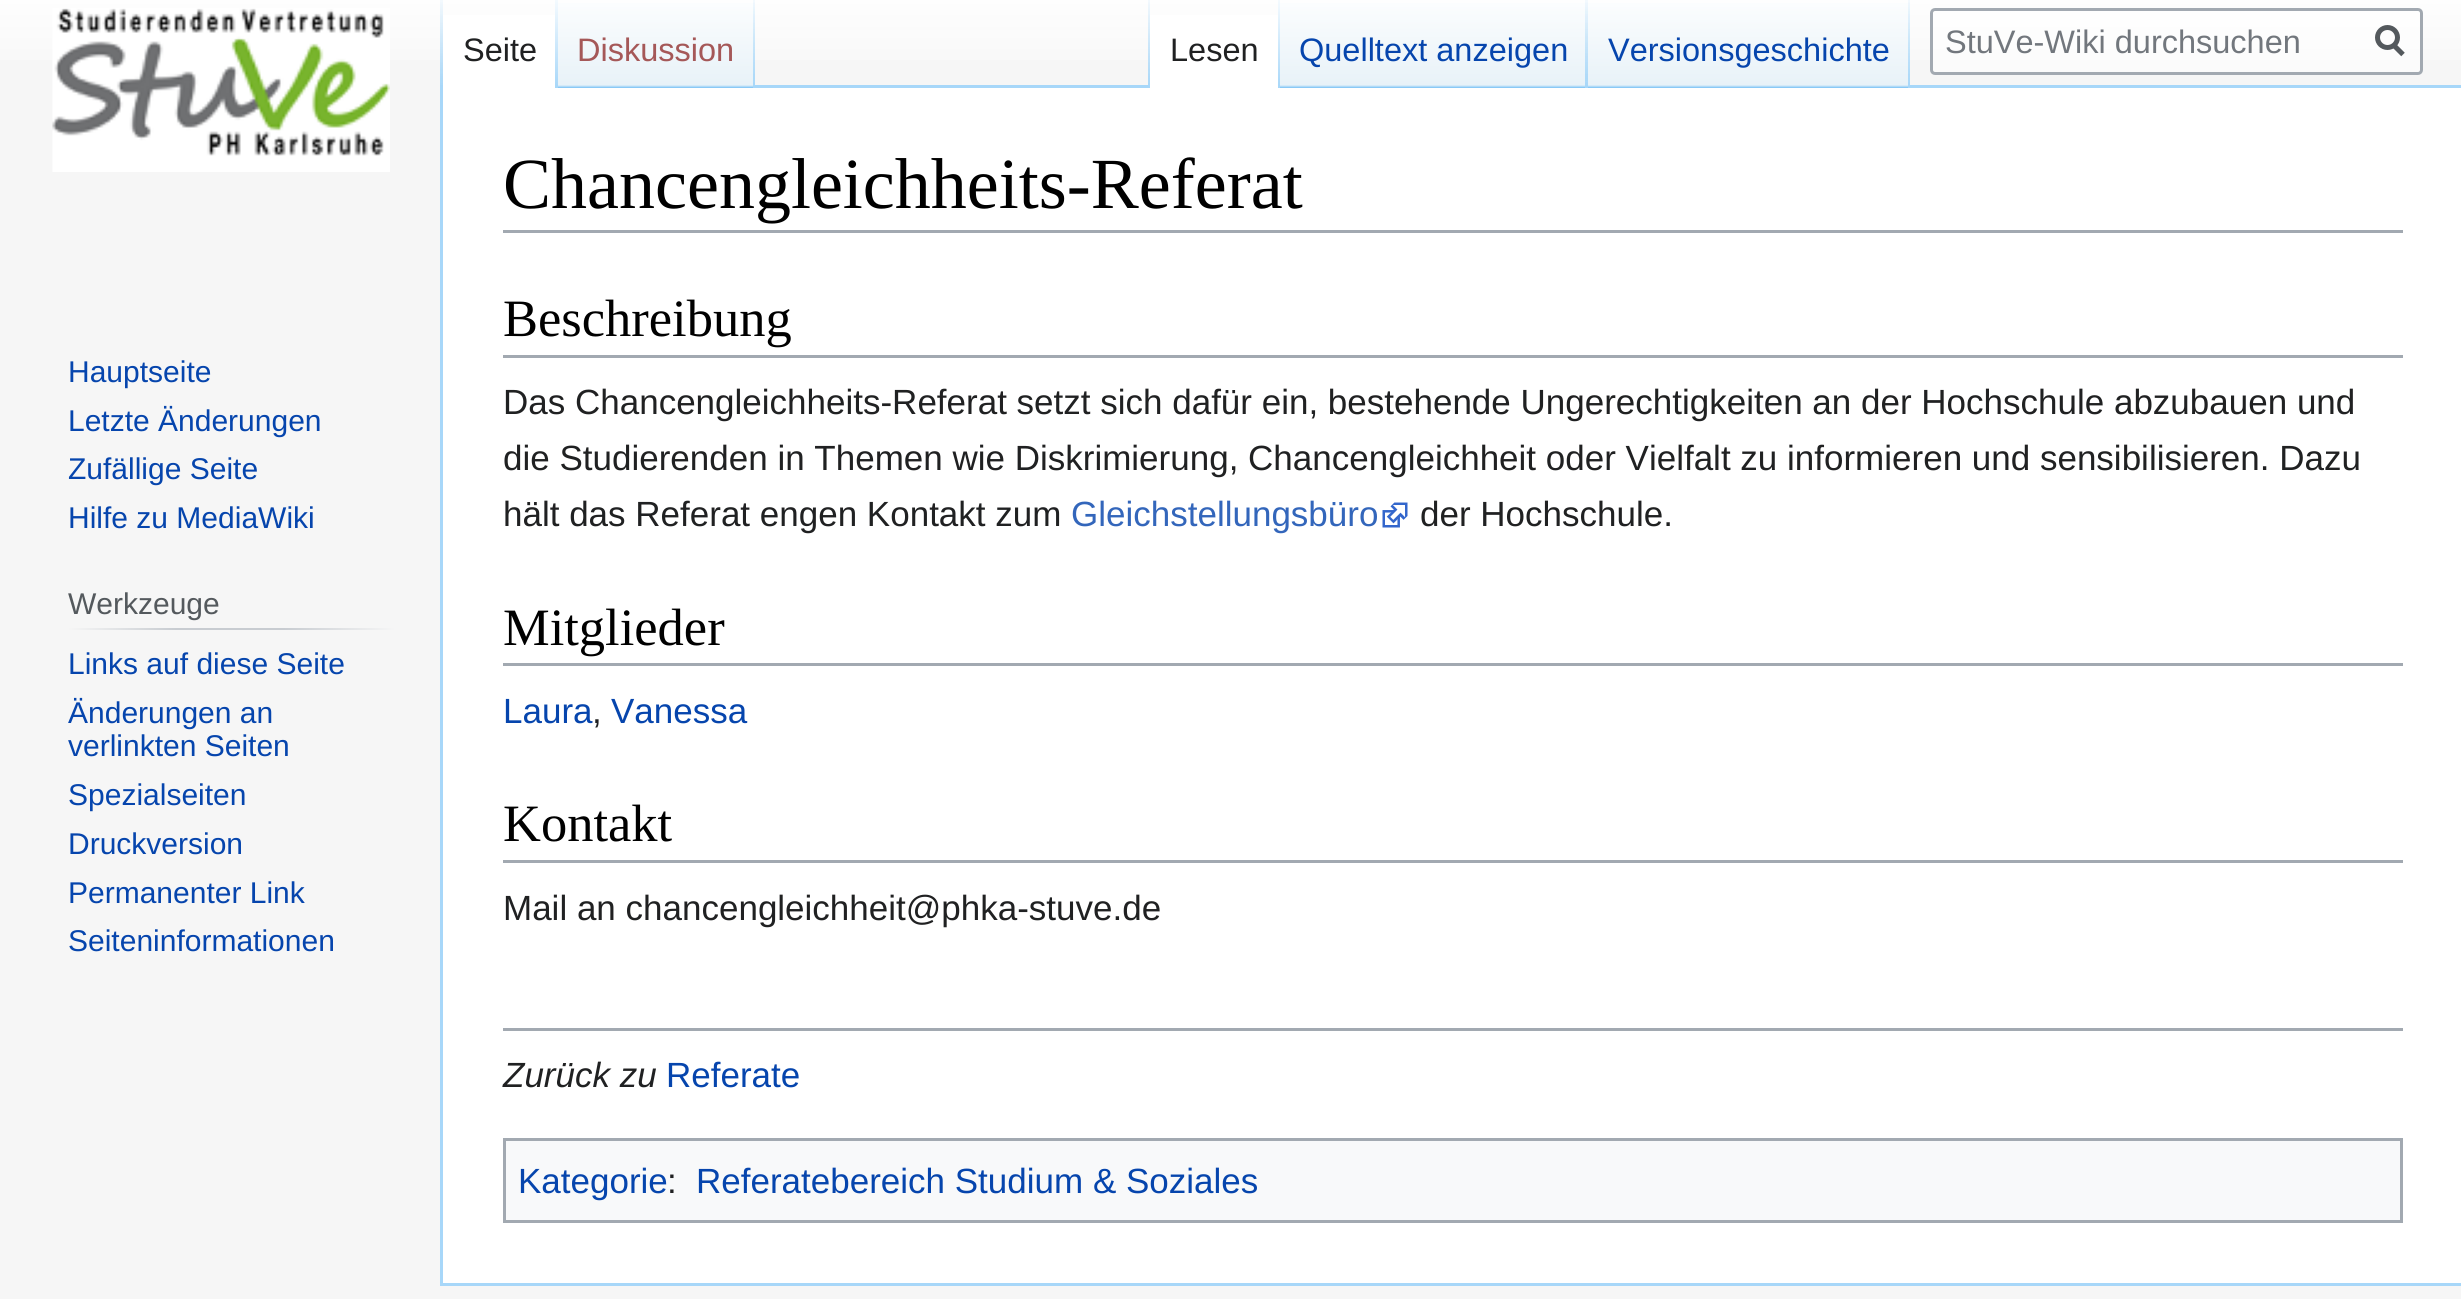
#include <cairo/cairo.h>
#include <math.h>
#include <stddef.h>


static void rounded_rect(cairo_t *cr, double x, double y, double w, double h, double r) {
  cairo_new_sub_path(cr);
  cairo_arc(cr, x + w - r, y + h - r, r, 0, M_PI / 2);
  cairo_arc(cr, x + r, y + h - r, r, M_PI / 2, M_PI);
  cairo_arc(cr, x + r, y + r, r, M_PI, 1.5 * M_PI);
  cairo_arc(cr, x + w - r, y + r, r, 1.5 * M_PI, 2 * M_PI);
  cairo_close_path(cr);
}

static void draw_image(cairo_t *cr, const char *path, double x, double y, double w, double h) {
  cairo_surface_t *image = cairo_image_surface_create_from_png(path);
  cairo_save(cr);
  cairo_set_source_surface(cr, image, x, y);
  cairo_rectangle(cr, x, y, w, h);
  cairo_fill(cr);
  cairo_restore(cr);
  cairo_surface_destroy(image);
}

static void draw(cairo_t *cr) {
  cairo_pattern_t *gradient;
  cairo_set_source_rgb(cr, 246 / 255.0, 246 / 255.0, 246 / 255.0);
  cairo_paint(cr);
  gradient = cairo_pattern_create_linear(1231, -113, 1231, 88);
  cairo_pattern_add_color_stop_rgba(gradient, 0.5, 1, 1, 1, 1);
  cairo_pattern_add_color_stop_rgba(gradient, 1, 246 / 255.0, 246 / 255.0, 246 / 255.0, 1);
  cairo_set_source(cr, gradient);
  cairo_pattern_destroy(gradient);
  cairo_rectangle(cr, 0, 0, 2461, 60);
  cairo_fill(cr);
  cairo_set_source_rgb(cr, 167 / 255.0, 215 / 255.0, 249 / 255.0);
  cairo_rectangle(cr, 440, 1283, 2021, 3);
  cairo_fill(cr);
  cairo_rectangle(cr, 440, 85, 3, 1200);
  cairo_fill(cr);
  gradient = cairo_pattern_create_linear(441, -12, 441, 88);
  cairo_pattern_add_color_stop_rgba(gradient, 0, 167 / 255.0, 215 / 255.0, 249 / 255.0, 0);
  cairo_pattern_add_color_stop_rgba(gradient, 1, 167 / 255.0, 215 / 255.0, 249 / 255.0, 1);
  cairo_set_source(cr, gradient);
  cairo_pattern_destroy(gradient);
  cairo_rectangle(cr, 440, 0, 3, 88);
  cairo_fill(cr);
  cairo_set_source_rgb(cr, 1, 1, 1);
  cairo_rectangle(cr, 443, 15, 112, 73);
  cairo_fill(cr);
  gradient = cairo_pattern_create_linear(556, -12, 556, 88);
  cairo_pattern_add_color_stop_rgba(gradient, 0, 1, 1, 1, 1);
  cairo_pattern_add_color_stop_rgba(gradient, 1, 167 / 255.0, 215 / 255.0, 249 / 255.0, 1);
  cairo_set_source(cr, gradient);
  cairo_pattern_destroy(gradient);
  cairo_rectangle(cr, 555, 0, 3, 88);
  cairo_fill(cr);
  gradient = cairo_pattern_create_linear(656, 88, 656, -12);
  cairo_pattern_add_color_stop_rgba(gradient, 0, 119 / 255.0, 193 / 255.0, 246 / 255.0, 1);
  cairo_pattern_add_color_stop_rgba(gradient, 0.03, 232 / 255.0, 242 / 255.0, 248 / 255.0, 1);
  cairo_pattern_add_color_stop_rgba(gradient, 1, 1, 1, 1, 1);
  cairo_set_source(cr, gradient);
  cairo_pattern_destroy(gradient);
  cairo_rectangle(cr, 558, 3, 197, 85);
  cairo_fill(cr);
  gradient = cairo_pattern_create_linear(754, -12, 754, 88);
  cairo_pattern_add_color_stop_rgba(gradient, 0, 167 / 255.0, 215 / 255.0, 249 / 255.0, 0);
  cairo_pattern_add_color_stop_rgba(gradient, 1, 167 / 255.0, 215 / 255.0, 249 / 255.0, 1);
  cairo_set_source(cr, gradient);
  cairo_pattern_destroy(gradient);
  cairo_rectangle(cr, 753, 0, 2, 88);
  cairo_fill(cr);
  cairo_set_source_rgb(cr, 167 / 255.0, 215 / 255.0, 249 / 255.0);
  cairo_rectangle(cr, 755, 85, 1706, 3);
  cairo_fill(cr);
  gradient = cairo_pattern_create_linear(1149, -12, 1149, 88);
  cairo_pattern_add_color_stop_rgba(gradient, 0, 167 / 255.0, 215 / 255.0, 249 / 255.0, 0);
  cairo_pattern_add_color_stop_rgba(gradient, 1, 167 / 255.0, 215 / 255.0, 249 / 255.0, 1);
  cairo_set_source(cr, gradient);
  cairo_pattern_destroy(gradient);
  cairo_rectangle(cr, 1148, 0, 2, 88);
  cairo_fill(cr);
  cairo_set_source_rgb(cr, 1, 1, 1);
  cairo_rectangle(cr, 1150, 15, 128, 73);
  cairo_fill(cr);
  gradient = cairo_pattern_create_linear(1279, -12, 1279, 88);
  cairo_pattern_add_color_stop_rgba(gradient, 0, 1, 1, 1, 1);
  cairo_pattern_add_color_stop_rgba(gradient, 1, 167 / 255.0, 215 / 255.0, 249 / 255.0, 1);
  cairo_set_source(cr, gradient);
  cairo_pattern_destroy(gradient);
  cairo_rectangle(cr, 1278, 0, 2, 88);
  cairo_fill(cr);
  gradient = cairo_pattern_create_linear(1434, 88, 1434, -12);
  cairo_pattern_add_color_stop_rgba(gradient, 0, 119 / 255.0, 193 / 255.0, 246 / 255.0, 1);
  cairo_pattern_add_color_stop_rgba(gradient, 0.03, 232 / 255.0, 242 / 255.0, 248 / 255.0, 1);
  cairo_pattern_add_color_stop_rgba(gradient, 1, 1, 1, 1, 1);
  cairo_set_source(cr, gradient);
  cairo_pattern_destroy(gradient);
  cairo_rectangle(cr, 1280, 3, 308, 85);
  cairo_fill(cr);
  gradient = cairo_pattern_create_linear(1586, -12, 1586, 88);
  cairo_pattern_add_color_stop_rgba(gradient, 0, 167 / 255.0, 215 / 255.0, 249 / 255.0, 0);
  cairo_pattern_add_color_stop_rgba(gradient, 1, 167 / 255.0, 215 / 255.0, 249 / 255.0, 1);
  cairo_set_source(cr, gradient);
  cairo_pattern_destroy(gradient);
  cairo_rectangle(cr, 1585, 0, 3, 88);
  cairo_fill(cr);
  gradient = cairo_pattern_create_linear(1749, 88, 1749, -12);
  cairo_pattern_add_color_stop_rgba(gradient, 0, 119 / 255.0, 193 / 255.0, 246 / 255.0, 1);
  cairo_pattern_add_color_stop_rgba(gradient, 0.03, 232 / 255.0, 242 / 255.0, 248 / 255.0, 1);
  cairo_pattern_add_color_stop_rgba(gradient, 1, 1, 1, 1, 1);
  cairo_set_source(cr, gradient);
  cairo_pattern_destroy(gradient);
  cairo_rectangle(cr, 1588, 3, 322, 85);
  cairo_fill(cr);
  gradient = cairo_pattern_create_linear(1909, -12, 1909, 88);
  cairo_pattern_add_color_stop_rgba(gradient, 0, 167 / 255.0, 215 / 255.0, 249 / 255.0, 0);
  cairo_pattern_add_color_stop_rgba(gradient, 1, 167 / 255.0, 215 / 255.0, 249 / 255.0, 1);
  cairo_set_source(cr, gradient);
  cairo_pattern_destroy(gradient);
  cairo_rectangle(cr, 1908, 0, 2, 88);
  cairo_fill(cr);
  cairo_set_source_rgba(cr, 1, 1, 1, 0.5);
  rounded_rect(cr, 1931.5, 9.5, 490, 64, 3.5);
  cairo_fill_preserve(cr);
  cairo_set_source_rgb(cr, 162 / 255.0, 169 / 255.0, 177 / 255.0);
  cairo_set_line_width(cr, 3);
  cairo_stroke(cr);
  cairo_new_path(cr);
  cairo_move_to(cr, 2403, 54.5);
  cairo_line_to(cr, 2393, 44.5);
  cairo_set_source_rgb(cr, 84 / 255.0, 89 / 255.0, 93 / 255.0);
  cairo_set_line_width(cr, 5);
  cairo_stroke(cr);
  cairo_arc(cr, 2387.5, 37.5, 10, 0, 2 * M_PI);
  cairo_stroke(cr);
  draw_image(cr, "images/1.png", 52, 8, 338, 164);
  gradient = cairo_pattern_create_linear(68, 629, 395, 629);
  cairo_pattern_add_color_stop_rgba(gradient, 0, 246 / 255.0, 246 / 255.0, 246 / 255.0, 1);
  cairo_pattern_add_color_stop_rgba(gradient, 0.33, 200 / 255.0, 204 / 255.0, 209 / 255.0, 1);
  cairo_pattern_add_color_stop_rgba(gradient, 0.66, 200 / 255.0, 204 / 255.0, 209 / 255.0, 1);
  cairo_pattern_add_color_stop_rgba(gradient, 1, 246 / 255.0, 246 / 255.0, 246 / 255.0, 1);
  cairo_set_source(cr, gradient);
  cairo_pattern_destroy(gradient);
  cairo_rectangle(cr, 68, 628, 327, 2);
  cairo_fill(cr);
  cairo_set_source_rgb(cr, 1, 1, 1);
  cairo_rectangle(cr, 443, 88, 2018, 1195);
  cairo_fill(cr);
  cairo_set_source_rgb(cr, 162 / 255.0, 169 / 255.0, 177 / 255.0);
  cairo_rectangle(cr, 503, 230, 1900, 3);
  cairo_fill(cr);
  cairo_rectangle(cr, 503, 355, 1900, 3);
  cairo_fill(cr);
  draw_image(cr, "images/2.png", 1382, 502, 26, 26);
  cairo_rectangle(cr, 503, 663, 1900, 3);
  cairo_fill(cr);
  cairo_rectangle(cr, 503, 860, 1900, 3);
  cairo_fill(cr);
  cairo_rectangle(cr, 503, 1028, 1900, 3);
  cairo_fill(cr);
  cairo_set_source_rgb(cr, 248 / 255.0, 249 / 255.0, 250 / 255.0);
  cairo_rectangle(cr, 504.5, 1139.5, 1897, 82);
  cairo_fill_preserve(cr);
  cairo_set_source_rgb(cr, 162 / 255.0, 169 / 255.0, 177 / 255.0);
  cairo_set_line_width(cr, 3);
  cairo_stroke(cr);
  cairo_select_font_face(cr, "Liberation Sans", CAIRO_FONT_SLANT_NORMAL, CAIRO_FONT_WEIGHT_NORMAL);
  cairo_set_font_size(cr, 32.5);
  cairo_set_source_rgb(cr, 32 / 255.0, 33 / 255.0, 34 / 255.0);
  cairo_move_to(cr, 463, 61);
  cairo_show_text(cr, "Seite");
  cairo_set_source_rgb(cr, 165 / 255.0, 88 / 255.0, 88 / 255.0);
  cairo_move_to(cr, 577, 61);
  cairo_show_text(cr, "Diskussion");
  cairo_set_source_rgb(cr, 32 / 255.0, 33 / 255.0, 34 / 255.0);
  cairo_move_to(cr, 1170, 61);
  cairo_show_text(cr, "Lesen");
  cairo_set_source_rgb(cr, 6 / 255.0, 69 / 255.0, 173 / 255.0);
  cairo_move_to(cr, 1299, 61);
  cairo_show_text(cr, "Quelltext anzeigen");
  cairo_move_to(cr, 1608, 61);
  cairo_show_text(cr, "Versionsgeschichte");
  cairo_set_source_rgb(cr, 114 / 255.0, 119 / 255.0, 125 / 255.0);
  cairo_move_to(cr, 1945, 53);
  cairo_show_text(cr, "StuVe-Wiki durchsuchen");
  cairo_set_font_size(cr, 30);
  cairo_set_source_rgb(cr, 6 / 255.0, 69 / 255.0, 173 / 255.0);
  cairo_move_to(cr, 68, 382);
  cairo_show_text(cr, "Hauptseite");
  cairo_move_to(cr, 68, 431);
  cairo_show_text(cr, "Letzte Änderungen");
  cairo_move_to(cr, 68, 479);
  cairo_show_text(cr, "Zufällige Seite");
  cairo_move_to(cr, 68, 528);
  cairo_show_text(cr, "Hilfe zu MediaWiki");
  cairo_set_source_rgb(cr, 84 / 255.0, 89 / 255.0, 93 / 255.0);
  cairo_move_to(cr, 68, 614);
  cairo_show_text(cr, "Werkzeuge");
  cairo_set_source_rgb(cr, 6 / 255.0, 69 / 255.0, 173 / 255.0);
  cairo_move_to(cr, 68, 674);
  cairo_show_text(cr, "Links auf diese Seite");
  cairo_move_to(cr, 68, 723);
  cairo_show_text(cr, "Änderungen an");
  cairo_move_to(cr, 68, 756);
  cairo_show_text(cr, "verlinkten Seiten");
  cairo_move_to(cr, 68, 805);
  cairo_show_text(cr, "Spezialseiten");
  cairo_move_to(cr, 68, 854);
  cairo_show_text(cr, "Druckversion");
  cairo_move_to(cr, 68, 903);
  cairo_show_text(cr, "Permanenter Link");
  cairo_move_to(cr, 68, 951);
  cairo_show_text(cr, "Seiteninformationen");
  cairo_select_font_face(cr, "Liberation Serif", CAIRO_FONT_SLANT_NORMAL, CAIRO_FONT_WEIGHT_NORMAL);
  cairo_set_font_size(cr, 72);
  cairo_set_source_rgb(cr, 0, 0, 0);
  cairo_move_to(cr, 503, 208);
  cairo_show_text(cr, "Chancengleichheits-Referat");
  cairo_set_font_size(cr, 52.5);
  cairo_move_to(cr, 503, 336);
  cairo_show_text(cr, "Beschreibung");
  cairo_select_font_face(cr, "Liberation Sans", CAIRO_FONT_SLANT_NORMAL, CAIRO_FONT_WEIGHT_NORMAL);
  cairo_set_font_size(cr, 35);
  cairo_set_source_rgb(cr, 32 / 255.0, 33 / 255.0, 34 / 255.0);
  cairo_move_to(cr, 503, 414);
  cairo_show_text(cr, "Das Chancengleichheits-Referat setzt sich dafür ein, bestehende Ungerechtigkeiten an der Hochschule abzubauen und");
  cairo_move_to(cr, 503, 470);
  cairo_show_text(cr, "die Studierenden in Themen wie Diskrimierung, Chancengleichheit oder Vielfalt zu informieren und sensibilisieren. Dazu");
  cairo_move_to(cr, 503, 526);
  cairo_show_text(cr, "hält das Referat engen Kontakt zum");
  cairo_set_source_rgb(cr, 51 / 255.0, 102 / 255.0, 187 / 255.0);
  cairo_move_to(cr, 1071, 526);
  cairo_show_text(cr, "Gleichstellungsbüro");
  cairo_set_source_rgb(cr, 32 / 255.0, 33 / 255.0, 34 / 255.0);
  cairo_move_to(cr, 1420, 526);
  cairo_show_text(cr, "der Hochschule.");
  cairo_select_font_face(cr, "Liberation Serif", CAIRO_FONT_SLANT_NORMAL, CAIRO_FONT_WEIGHT_NORMAL);
  cairo_set_font_size(cr, 52.5);
  cairo_set_source_rgb(cr, 0, 0, 0);
  cairo_move_to(cr, 503, 645);
  cairo_show_text(cr, "Mitglieder");
  cairo_select_font_face(cr, "Liberation Sans", CAIRO_FONT_SLANT_NORMAL, CAIRO_FONT_WEIGHT_NORMAL);
  cairo_set_font_size(cr, 35);
  cairo_set_source_rgb(cr, 6 / 255.0, 69 / 255.0, 173 / 255.0);
  cairo_move_to(cr, 503, 723);
  cairo_show_text(cr, "Laura");
  cairo_set_source_rgb(cr, 32 / 255.0, 33 / 255.0, 34 / 255.0);
  cairo_move_to(cr, 592, 723);
  cairo_show_text(cr, ",");
  cairo_set_source_rgb(cr, 6 / 255.0, 69 / 255.0, 173 / 255.0);
  cairo_move_to(cr, 611, 723);
  cairo_show_text(cr, "Vanessa");
  cairo_select_font_face(cr, "Liberation Serif", CAIRO_FONT_SLANT_NORMAL, CAIRO_FONT_WEIGHT_NORMAL);
  cairo_set_font_size(cr, 52.5);
  cairo_set_source_rgb(cr, 0, 0, 0);
  cairo_move_to(cr, 503, 841);
  cairo_show_text(cr, "Kontakt");
  cairo_select_font_face(cr, "Liberation Sans", CAIRO_FONT_SLANT_NORMAL, CAIRO_FONT_WEIGHT_NORMAL);
  cairo_set_font_size(cr, 35);
  cairo_set_source_rgb(cr, 32 / 255.0, 33 / 255.0, 34 / 255.0);
  cairo_move_to(cr, 503, 920);
  cairo_show_text(cr, "Mail an chancengleichheit@phka-stuve.de");
  cairo_select_font_face(cr, "Liberation Sans", CAIRO_FONT_SLANT_ITALIC, CAIRO_FONT_WEIGHT_NORMAL);
  cairo_move_to(cr, 503, 1087);
  cairo_show_text(cr, "Zurück zu");
  cairo_select_font_face(cr, "Liberation Sans", CAIRO_FONT_SLANT_NORMAL, CAIRO_FONT_WEIGHT_NORMAL);
  cairo_set_source_rgb(cr, 6 / 255.0, 69 / 255.0, 173 / 255.0);
  cairo_move_to(cr, 666, 1087);
  cairo_show_text(cr, "Referate");
  cairo_move_to(cr, 518, 1193);
  cairo_show_text(cr, "Kategorie");
  cairo_set_source_rgb(cr, 32 / 255.0, 33 / 255.0, 34 / 255.0);
  cairo_move_to(cr, 667, 1193);
  cairo_show_text(cr, ":");
  cairo_set_source_rgb(cr, 6 / 255.0, 69 / 255.0, 173 / 255.0);
  cairo_move_to(cr, 696, 1193);
  cairo_show_text(cr, "Referatebereich Studium & Soziales");
}

int main(void) {
  cairo_surface_t *surface = cairo_image_surface_create(CAIRO_FORMAT_RGB24, 2461, 1299);
  cairo_t *cr = cairo_create(surface);
  cairo_font_options_t *options = cairo_font_options_create();
  cairo_font_options_set_hint_metrics(options, CAIRO_HINT_METRICS_OFF);
  cairo_font_options_set_hint_style(options, CAIRO_HINT_STYLE_NONE);
  cairo_set_font_options(cr, options);
  cairo_set_miter_limit(cr, 4);
  draw(cr);
  cairo_surface_write_to_png(surface, "out.png");
  cairo_font_options_destroy(options);
  cairo_destroy(cr);
  cairo_surface_destroy(surface);
  return 0;
}
